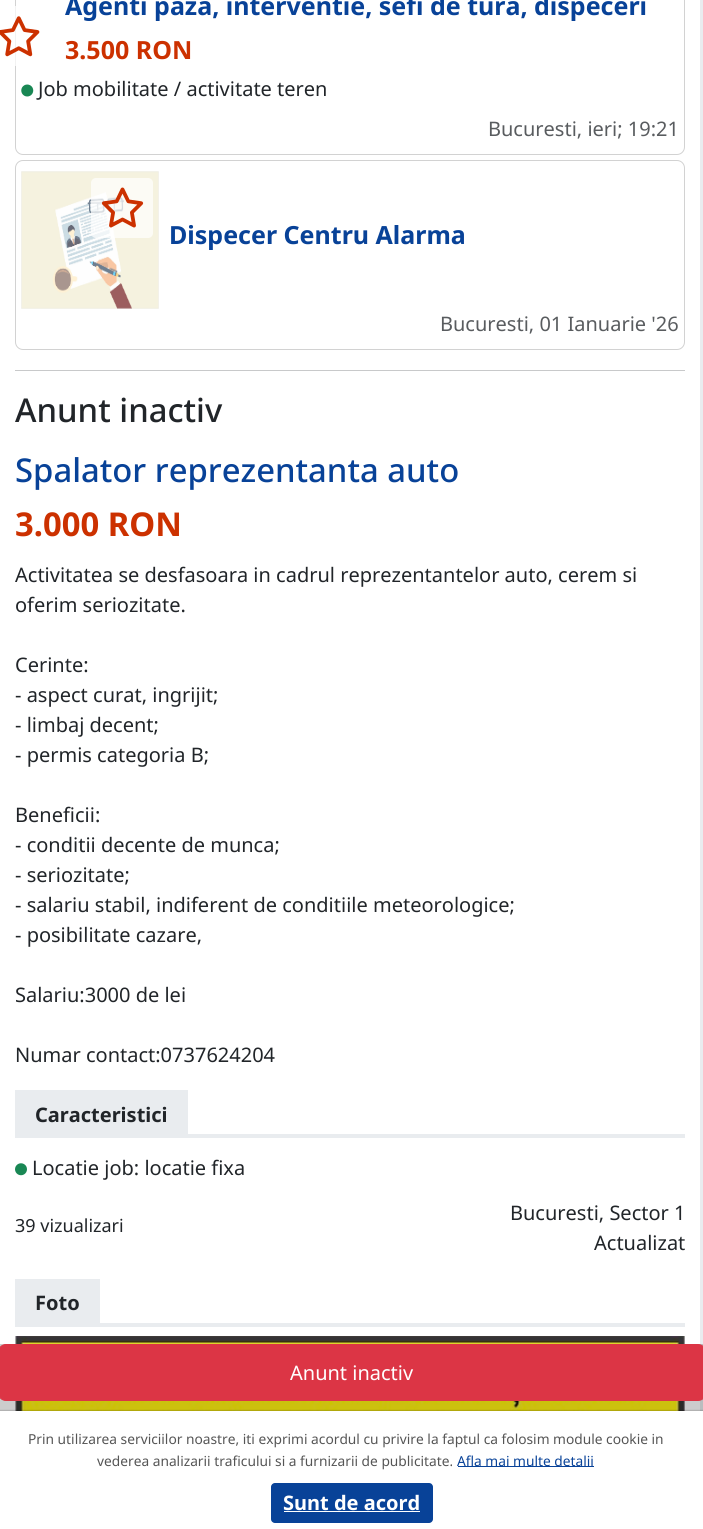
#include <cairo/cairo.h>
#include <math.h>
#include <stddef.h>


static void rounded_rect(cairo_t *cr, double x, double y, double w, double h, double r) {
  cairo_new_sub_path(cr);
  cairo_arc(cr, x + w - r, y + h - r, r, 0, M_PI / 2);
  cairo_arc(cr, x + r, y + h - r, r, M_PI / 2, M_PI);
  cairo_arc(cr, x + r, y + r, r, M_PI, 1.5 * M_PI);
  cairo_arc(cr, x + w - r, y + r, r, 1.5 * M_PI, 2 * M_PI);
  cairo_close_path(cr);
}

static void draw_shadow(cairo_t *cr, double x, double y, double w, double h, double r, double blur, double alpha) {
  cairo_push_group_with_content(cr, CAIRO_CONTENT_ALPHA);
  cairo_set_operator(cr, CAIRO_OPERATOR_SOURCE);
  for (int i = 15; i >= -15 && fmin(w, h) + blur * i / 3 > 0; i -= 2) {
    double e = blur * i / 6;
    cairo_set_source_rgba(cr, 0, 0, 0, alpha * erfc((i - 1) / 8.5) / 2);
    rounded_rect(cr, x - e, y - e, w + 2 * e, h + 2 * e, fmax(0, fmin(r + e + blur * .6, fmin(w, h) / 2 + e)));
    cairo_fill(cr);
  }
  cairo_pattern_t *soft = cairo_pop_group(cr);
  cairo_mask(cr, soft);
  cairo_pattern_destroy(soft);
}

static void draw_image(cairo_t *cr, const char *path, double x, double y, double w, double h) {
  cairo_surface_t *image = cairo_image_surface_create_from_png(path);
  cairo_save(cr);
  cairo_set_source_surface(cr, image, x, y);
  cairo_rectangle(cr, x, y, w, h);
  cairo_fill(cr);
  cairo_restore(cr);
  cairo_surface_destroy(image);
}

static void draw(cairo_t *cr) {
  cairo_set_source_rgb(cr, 1, 1, 1);
  cairo_paint(cr);
  cairo_set_source_rgb(cr, 204 / 255.0, 204 / 255.0, 204 / 255.0);
  cairo_rectangle(cr, 0, 1344, 700, 67);
  cairo_fill(cr);
  cairo_set_source_rgb(cr, 233 / 255.0, 236 / 255.0, 239 / 255.0);
  cairo_rectangle(cr, 700, 0, 3, 1344);
  cairo_fill(cr);
  cairo_set_source_rgb(cr, 186 / 255.0, 189 / 255.0, 191 / 255.0);
  cairo_rectangle(cr, 700, 1344, 3, 67);
  cairo_fill(cr);
  rounded_rect(cr, 15.5, -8.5, 669, 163, 7.5);
  cairo_set_source_rgb(cr, 210 / 255.0, 210 / 255.0, 210 / 255.0);
  cairo_set_line_width(cr, 1);
  cairo_stroke(cr);
  cairo_set_source_rgba(cr, 1, 1, 1, 0.7);
  rounded_rect(cr, -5, 6, 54, 60, 5);
  cairo_fill(cr);
  draw_image(cr, "images/1.png", 0, 16, 40, 41);
  draw_image(cr, "images/2.png", 21, 84, 13, 13);
  rounded_rect(cr, 15.5, 160.5, 669, 189, 7.5);
  cairo_set_source_rgb(cr, 210 / 255.0, 210 / 255.0, 210 / 255.0);
  cairo_stroke(cr);
  draw_image(cr, "images/3.png", 21, 171, 138, 138);
  cairo_set_source_rgba(cr, 1, 1, 1, 0.7);
  rounded_rect(cr, 91, 178, 62, 60, 5);
  cairo_fill(cr);
  draw_image(cr, "images/4.png", 101, 187, 43, 41);
  cairo_set_source_rgb(cr, 200 / 255.0, 201 / 255.0, 202 / 255.0);
  cairo_rectangle(cr, 15, 370, 670, 1);
  cairo_fill(cr);
  cairo_set_source_rgb(cr, 233 / 255.0, 236 / 255.0, 239 / 255.0);
  cairo_rectangle(cr, 188, 1134, 497, 4);
  cairo_fill(cr);
  cairo_rectangle(cr, 15, 1090, 173, 48);
  cairo_fill(cr);
  draw_image(cr, "images/5.png", 15, 1163, 12, 13);
  cairo_rectangle(cr, 15, 1323, 670, 4);
  cairo_fill(cr);
  cairo_rectangle(cr, 15, 1279, 85, 44);
  cairo_fill(cr);
  draw_image(cr, "images/6.png", 15, 1336, 670, 75);
  cairo_set_source_rgb(cr, 220 / 255.0, 53 / 255.0, 69 / 255.0);
  rounded_rect(cr, -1.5, 1344.5, 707, 56, 7.5);
  cairo_fill_preserve(cr);
  cairo_stroke(cr);
  cairo_set_source_rgb(cr, 0, 0, 0);
  draw_shadow(cr, 0, 1411, 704, 114, 0, 1, 0.4);
  cairo_set_source_rgb(cr, 1, 1, 1);
  cairo_rectangle(cr, 0, 1411, 703, 116);
  cairo_fill(cr);
  cairo_set_source_rgb(cr, 8 / 255.0, 66 / 255.0, 152 / 255.0);
  cairo_rectangle(cr, 458, 1466, 136, 1);
  cairo_fill(cr);
  rounded_rect(cr, 271, 1483, 162, 40, 4);
  cairo_fill(cr);
  cairo_set_source_rgb(cr, 1, 1, 1);
  cairo_rectangle(cr, 284, 1511, 136, 1);
  cairo_fill(cr);
  cairo_select_font_face(cr, "Noto Sans", CAIRO_FONT_SLANT_NORMAL, CAIRO_FONT_WEIGHT_BOLD);
  cairo_set_font_size(cr, 25);
  cairo_set_source_rgb(cr, 8 / 255.0, 66 / 255.0, 152 / 255.0);
  cairo_move_to(cr, 65, 15);
  cairo_show_text(cr, "Agenti paza, interventie, sefi de tura, dispeceri");
  cairo_set_source_rgb(cr, 204 / 255.0, 49 / 255.0, 0);
  cairo_move_to(cr, 65, 59);
  cairo_show_text(cr, "3.500 RON");
  cairo_select_font_face(cr, "Noto Sans", CAIRO_FONT_SLANT_NORMAL, CAIRO_FONT_WEIGHT_NORMAL);
  cairo_set_font_size(cr, 20);
  cairo_set_source_rgb(cr, 33 / 255.0, 37 / 255.0, 41 / 255.0);
  cairo_move_to(cr, 38, 96);
  cairo_show_text(cr, "Job mobilitate / activitate teren");
  cairo_set_source_rgb(cr, 89 / 255.0, 92 / 255.0, 95 / 255.0);
  cairo_move_to(cr, 488, 136);
  cairo_show_text(cr, "Bucuresti, ieri; 19:21");
  cairo_select_font_face(cr, "Noto Sans", CAIRO_FONT_SLANT_NORMAL, CAIRO_FONT_WEIGHT_BOLD);
  cairo_set_font_size(cr, 25);
  cairo_set_source_rgb(cr, 8 / 255.0, 66 / 255.0, 152 / 255.0);
  cairo_move_to(cr, 169, 244);
  cairo_show_text(cr, "Dispecer Centru Alarma");
  cairo_select_font_face(cr, "Noto Sans", CAIRO_FONT_SLANT_NORMAL, CAIRO_FONT_WEIGHT_NORMAL);
  cairo_set_font_size(cr, 20);
  cairo_set_source_rgb(cr, 89 / 255.0, 92 / 255.0, 95 / 255.0);
  cairo_move_to(cr, 440, 331);
  cairo_show_text(cr, "Bucuresti, 01 Ianuarie '26");
  cairo_select_font_face(cr, "Noto Sans Medium", CAIRO_FONT_SLANT_NORMAL, CAIRO_FONT_WEIGHT_NORMAL);
  cairo_set_font_size(cr, 32.8);
  cairo_set_source_rgb(cr, 33 / 255.0, 37 / 255.0, 41 / 255.0);
  cairo_move_to(cr, 15, 422);
  cairo_show_text(cr, "Anunt inactiv");
  cairo_set_source_rgb(cr, 8 / 255.0, 66 / 255.0, 152 / 255.0);
  cairo_move_to(cr, 15, 482);
  cairo_show_text(cr, "Spalator reprezentanta auto");
  cairo_select_font_face(cr, "Noto Sans", CAIRO_FONT_SLANT_NORMAL, CAIRO_FONT_WEIGHT_BOLD);
  cairo_set_source_rgb(cr, 204 / 255.0, 49 / 255.0, 0);
  cairo_move_to(cr, 15, 536);
  cairo_show_text(cr, "3.000 RON");
  cairo_select_font_face(cr, "Noto Sans", CAIRO_FONT_SLANT_NORMAL, CAIRO_FONT_WEIGHT_NORMAL);
  cairo_set_font_size(cr, 20);
  cairo_set_source_rgb(cr, 33 / 255.0, 37 / 255.0, 41 / 255.0);
  cairo_move_to(cr, 15, 582);
  cairo_show_text(cr, "Activitatea se desfasoara in cadrul reprezentantelor auto, cerem si");
  cairo_move_to(cr, 15, 612);
  cairo_show_text(cr, "oferim seriozitate.");
  cairo_move_to(cr, 15, 672);
  cairo_show_text(cr, "Cerinte:");
  cairo_move_to(cr, 15, 702);
  cairo_show_text(cr, "- aspect curat, ingrijit;");
  cairo_move_to(cr, 15, 732);
  cairo_show_text(cr, "- limbaj decent;");
  cairo_move_to(cr, 15, 762);
  cairo_show_text(cr, "- permis categoria B;");
  cairo_move_to(cr, 15, 822);
  cairo_show_text(cr, "Beneficii:");
  cairo_move_to(cr, 15, 852);
  cairo_show_text(cr, "- conditii decente de munca;");
  cairo_move_to(cr, 15, 882);
  cairo_show_text(cr, "- seriozitate;");
  cairo_move_to(cr, 15, 912);
  cairo_show_text(cr, "- salariu stabil, indiferent de conditiile meteorologice;");
  cairo_move_to(cr, 15, 942);
  cairo_show_text(cr, "- posibilitate cazare,");
  cairo_move_to(cr, 15, 1002);
  cairo_show_text(cr, "Salariu:3000 de lei");
  cairo_move_to(cr, 15, 1062);
  cairo_show_text(cr, "Numar contact:0737624204");
  cairo_select_font_face(cr, "Noto Sans", CAIRO_FONT_SLANT_NORMAL, CAIRO_FONT_WEIGHT_BOLD);
  cairo_move_to(cr, 35, 1122);
  cairo_show_text(cr, "Caracteristici");
  cairo_select_font_face(cr, "Noto Sans", CAIRO_FONT_SLANT_NORMAL, CAIRO_FONT_WEIGHT_NORMAL);
  cairo_move_to(cr, 32, 1175);
  cairo_show_text(cr, "Locatie job: locatie fixa");
  cairo_set_font_size(cr, 18);
  cairo_move_to(cr, 15, 1232);
  cairo_show_text(cr, "39 vizualizari");
  cairo_set_font_size(cr, 20);
  cairo_move_to(cr, 510, 1220);
  cairo_show_text(cr, "Bucuresti, Sector 1");
  cairo_move_to(cr, 594, 1250);
  cairo_show_text(cr, "Actualizat");
  cairo_select_font_face(cr, "Noto Sans", CAIRO_FONT_SLANT_NORMAL, CAIRO_FONT_WEIGHT_BOLD);
  cairo_move_to(cr, 35, 1310);
  cairo_show_text(cr, "Foto");
  cairo_select_font_face(cr, "Noto Sans", CAIRO_FONT_SLANT_NORMAL, CAIRO_FONT_WEIGHT_NORMAL);
  cairo_set_source_rgb(cr, 1, 1, 1);
  cairo_move_to(cr, 290, 1380);
  cairo_show_text(cr, "Anunt inactiv");
  cairo_set_font_size(cr, 13.75);
  cairo_set_source_rgb(cr, 85 / 255.0, 85 / 255.0, 85 / 255.0);
  cairo_move_to(cr, 28, 1444);
  cairo_show_text(cr, "Prin utilizarea serviciilor noastre, iti exprimi acordul cu privire la faptul ca folosim module cookie in");
  cairo_move_to(cr, 97, 1466);
  cairo_show_text(cr, "vederea analizarii traficului si a furnizarii de publicitate.");
  cairo_set_source_rgb(cr, 8 / 255.0, 66 / 255.0, 152 / 255.0);
  cairo_move_to(cr, 457, 1466);
  cairo_show_text(cr, "Afla mai multe detalii");
  cairo_select_font_face(cr, "Noto Sans", CAIRO_FONT_SLANT_NORMAL, CAIRO_FONT_WEIGHT_BOLD);
  cairo_set_font_size(cr, 20);
  cairo_set_source_rgb(cr, 1, 1, 1);
  cairo_move_to(cr, 283, 1510);
  cairo_show_text(cr, "Sunt de acord");
}

int main(void) {
  cairo_surface_t *surface = cairo_image_surface_create(CAIRO_FORMAT_RGB24, 703, 1529);
  cairo_t *cr = cairo_create(surface);
  cairo_font_options_t *options = cairo_font_options_create();
  cairo_font_options_set_hint_metrics(options, CAIRO_HINT_METRICS_OFF);
  cairo_font_options_set_hint_style(options, CAIRO_HINT_STYLE_NONE);
  cairo_set_font_options(cr, options);
  cairo_set_miter_limit(cr, 4);
  draw(cr);
  cairo_surface_write_to_png(surface, "out.png");
  cairo_font_options_destroy(options);
  cairo_destroy(cr);
  cairo_surface_destroy(surface);
  return 0;
}
